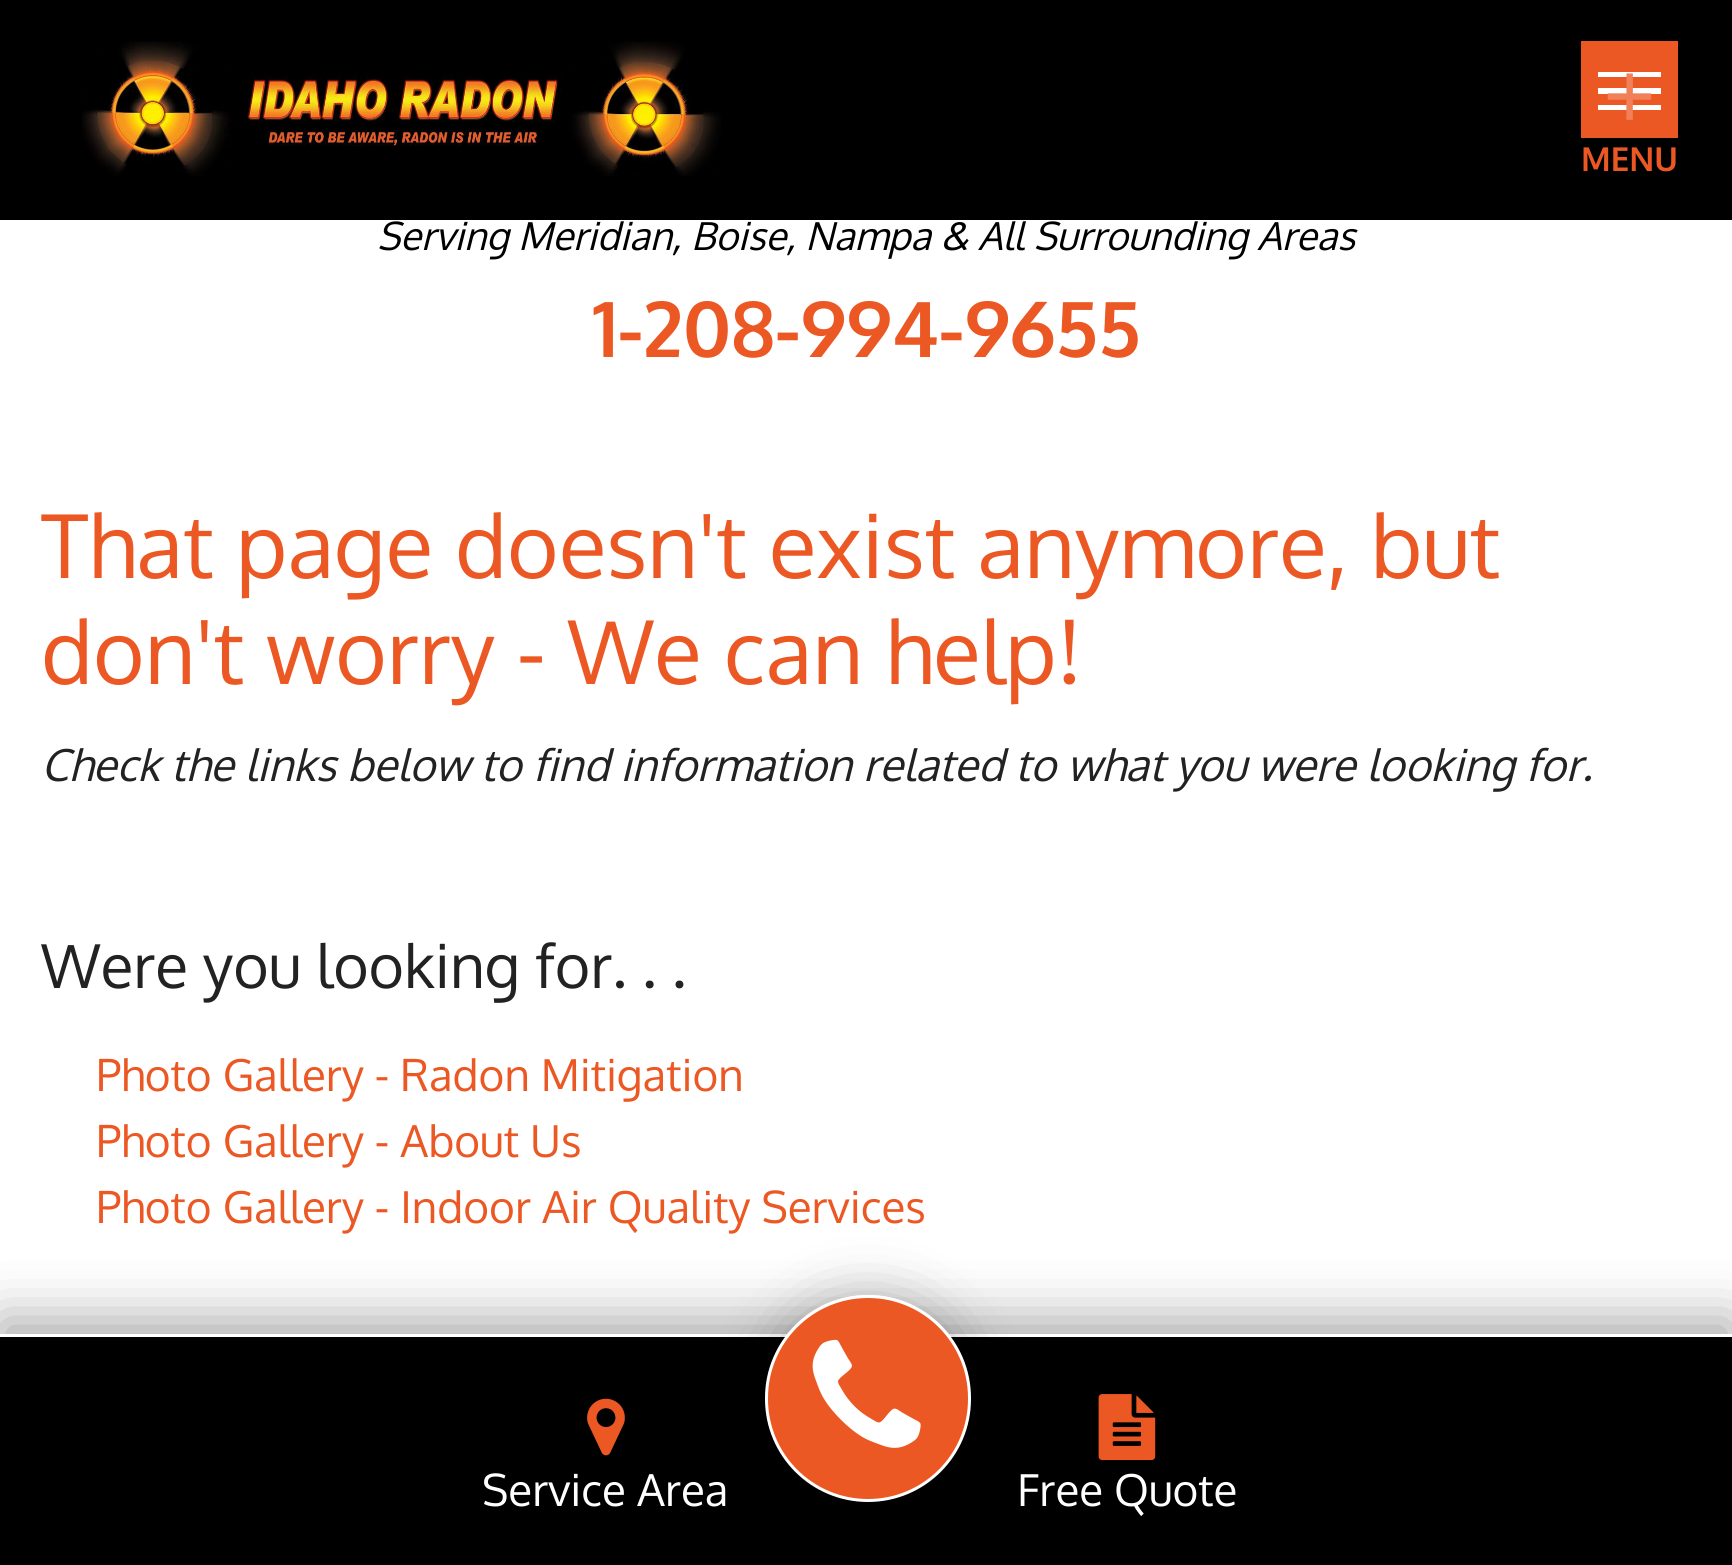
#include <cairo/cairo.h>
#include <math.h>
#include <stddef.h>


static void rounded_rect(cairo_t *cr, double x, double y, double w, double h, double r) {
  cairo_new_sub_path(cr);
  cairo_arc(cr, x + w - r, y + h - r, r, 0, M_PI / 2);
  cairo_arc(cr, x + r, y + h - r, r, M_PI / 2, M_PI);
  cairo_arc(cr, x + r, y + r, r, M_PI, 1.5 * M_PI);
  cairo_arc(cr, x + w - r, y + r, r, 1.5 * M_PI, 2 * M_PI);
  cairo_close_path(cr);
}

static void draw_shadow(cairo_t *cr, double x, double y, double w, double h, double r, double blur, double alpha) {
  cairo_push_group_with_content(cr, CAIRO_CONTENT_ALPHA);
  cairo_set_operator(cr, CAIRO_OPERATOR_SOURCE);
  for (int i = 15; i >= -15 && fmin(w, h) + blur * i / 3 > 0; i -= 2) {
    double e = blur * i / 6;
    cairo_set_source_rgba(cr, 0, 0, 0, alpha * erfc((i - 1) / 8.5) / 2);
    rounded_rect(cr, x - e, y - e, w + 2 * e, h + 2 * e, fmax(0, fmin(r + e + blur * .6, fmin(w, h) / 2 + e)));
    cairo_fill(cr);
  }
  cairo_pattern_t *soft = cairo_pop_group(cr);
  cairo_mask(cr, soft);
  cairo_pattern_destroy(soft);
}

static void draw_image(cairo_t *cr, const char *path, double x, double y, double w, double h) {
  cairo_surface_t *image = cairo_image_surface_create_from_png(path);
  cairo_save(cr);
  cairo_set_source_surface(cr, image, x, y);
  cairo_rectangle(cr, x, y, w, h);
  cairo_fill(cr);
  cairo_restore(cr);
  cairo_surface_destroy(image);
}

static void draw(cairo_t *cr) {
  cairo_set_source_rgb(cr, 1, 1, 1);
  cairo_paint(cr);
  cairo_set_source_rgb(cr, 0, 0, 0);
  cairo_rectangle(cr, 0, 0, 1732, 220);
  cairo_fill(cr);
  draw_image(cr, "images/1.png", 82, 41, 639, 135);
  cairo_set_source_rgb(cr, 236 / 255.0, 88 / 255.0, 35 / 255.0);
  cairo_rectangle(cr, 1598, 110, 63, 28);
  cairo_fill(cr);
  cairo_set_source_rgb(cr, 1, 1, 1);
  cairo_rectangle(cr, 1598, 105, 63, 5);
  cairo_fill(cr);
  cairo_set_source_rgb(cr, 236 / 255.0, 88 / 255.0, 35 / 255.0);
  cairo_rectangle(cr, 1598, 94, 63, 11);
  cairo_fill(cr);
  cairo_set_source_rgb(cr, 1, 1, 1);
  cairo_rectangle(cr, 1598, 88, 63, 6);
  cairo_fill(cr);
  cairo_set_source_rgb(cr, 236 / 255.0, 88 / 255.0, 35 / 255.0);
  cairo_rectangle(cr, 1598, 77, 63, 11);
  cairo_fill(cr);
  cairo_set_source_rgb(cr, 1, 1, 1);
  cairo_rectangle(cr, 1598, 72, 63, 5);
  cairo_fill(cr);
  cairo_set_source_rgb(cr, 236 / 255.0, 88 / 255.0, 35 / 255.0);
  cairo_rectangle(cr, 1661, 72, 17, 66);
  cairo_fill(cr);
  cairo_save(cr);
  cairo_rectangle(cr, 1581, 41, 97, 97);
  cairo_clip(cr);
  cairo_set_fill_rule(cr, CAIRO_FILL_RULE_EVEN_ODD);
  cairo_new_path(cr);
  cairo_move_to(cr, 1309, -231);
  cairo_line_to(cr, 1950, -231);
  cairo_line_to(cr, 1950, 410);
  cairo_line_to(cr, 1309, 410);
  cairo_close_path(cr);
  cairo_move_to(cr, 1598, 72);
  cairo_line_to(cr, 1694, 72);
  cairo_line_to(cr, 1694, 168);
  cairo_line_to(cr, 1598, 168);
  cairo_close_path(cr);
  cairo_fill(cr);
  cairo_restore(cr);
  cairo_set_source_rgb(cr, 0, 0, 0);
  draw_shadow(cr, 0, 1320, 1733, 234, 0, 27.5, 0.35);
  cairo_set_source_rgb(cr, 0, 0, 0);
  cairo_rectangle(cr, 0, 1337, 1732, 228);
  cairo_fill(cr);
  cairo_set_source_rgb(cr, 1, 1, 1);
  cairo_rectangle(cr, 0, 1334, 1732, 3);
  cairo_fill(cr);
  draw_image(cr, "images/2.png", 587, 1398, 38, 58);
  cairo_save(cr);
  cairo_set_fill_rule(cr, CAIRO_FILL_RULE_EVEN_ODD);
  cairo_new_path(cr);
  cairo_move_to(cr, 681, 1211);
  cairo_line_to(cr, 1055, 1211);
  cairo_line_to(cr, 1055, 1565);
  cairo_line_to(cr, 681, 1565);
  cairo_close_path(cr);
  cairo_move_to(cr, 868, 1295);
  cairo_curve_to(cr, 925, 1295, 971, 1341, 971, 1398);
  cairo_line_to(cr, 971, 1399);
  cairo_curve_to(cr, 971, 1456, 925, 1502, 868, 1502);
  cairo_curve_to(cr, 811, 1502, 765, 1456, 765, 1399);
  cairo_line_to(cr, 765, 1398);
  cairo_curve_to(cr, 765, 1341, 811, 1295, 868, 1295);
  cairo_close_path(cr);
  cairo_clip(cr);
  cairo_set_source_rgb(cr, 0, 0, 0);
  draw_shadow(cr, 765, 1295, 206, 207, 103, 27.5, 0.25);
  cairo_restore(cr);
  cairo_set_source_rgb(cr, 236 / 255.0, 88 / 255.0, 35 / 255.0);
  rounded_rect(cr, 766.5, 1296.5, 203, 204, 101.5);
  cairo_fill_preserve(cr);
  cairo_set_source_rgb(cr, 1, 1, 1);
  cairo_set_line_width(cr, 3);
  cairo_stroke(cr);
  draw_image(cr, "images/3.png", 812, 1339, 109, 109);
  draw_image(cr, "images/4.png", 1098, 1394, 58, 67);
  cairo_select_font_face(cr, "Oxygen", CAIRO_FONT_SLANT_NORMAL, CAIRO_FONT_WEIGHT_NORMAL);
  cairo_set_font_size(cr, 96);
  cairo_set_source_rgb(cr, 241 / 255.0, 128 / 255.0, 88 / 255.0);
  cairo_move_to(cr, 1603, 127);
  cairo_show_text(cr, "+");
  cairo_select_font_face(cr, "Oxygen", CAIRO_FONT_SLANT_NORMAL, CAIRO_FONT_WEIGHT_BOLD);
  cairo_set_font_size(cr, 33);
  cairo_set_source_rgb(cr, 236 / 255.0, 88 / 255.0, 35 / 255.0);
  cairo_move_to(cr, 1581, 171);
  cairo_show_text(cr, "MENU");
  cairo_select_font_face(cr, "Oxygen", CAIRO_FONT_SLANT_ITALIC, CAIRO_FONT_WEIGHT_NORMAL);
  cairo_set_font_size(cr, 38.5);
  cairo_set_source_rgb(cr, 0, 0, 0);
  cairo_move_to(cr, 377, 250);
  cairo_show_text(cr, "Serving Meridian, Boise, Nampa & All Surrounding Areas");
  cairo_select_font_face(cr, "Oxygen", CAIRO_FONT_SLANT_NORMAL, CAIRO_FONT_WEIGHT_BOLD);
  cairo_set_font_size(cr, 77);
  cairo_set_source_rgb(cr, 236 / 255.0, 88 / 255.0, 35 / 255.0);
  cairo_move_to(cr, 592, 357);
  cairo_show_text(cr, "1-208-994-9655");
  cairo_select_font_face(cr, "Oxygen", CAIRO_FONT_SLANT_NORMAL, CAIRO_FONT_WEIGHT_NORMAL);
  cairo_set_font_size(cr, 88);
  cairo_move_to(cr, 41, 578);
  cairo_show_text(cr, "That page doesn't exist anymore, but");
  cairo_move_to(cr, 41, 684);
  cairo_show_text(cr, "don't worry - We can help!");
  cairo_select_font_face(cr, "Oxygen", CAIRO_FONT_SLANT_ITALIC, CAIRO_FONT_WEIGHT_NORMAL);
  cairo_set_font_size(cr, 44);
  cairo_set_source_rgb(cr, 34 / 255.0, 34 / 255.0, 34 / 255.0);
  cairo_move_to(cr, 41, 781);
  cairo_show_text(cr, "Check the links below to find information related to what you were looking for.");
  cairo_select_font_face(cr, "Oxygen", CAIRO_FONT_SLANT_NORMAL, CAIRO_FONT_WEIGHT_NORMAL);
  cairo_set_font_size(cr, 60.5);
  cairo_move_to(cr, 41, 988);
  cairo_show_text(cr, "Were you looking for. . .");
  cairo_set_font_size(cr, 44);
  cairo_set_source_rgb(cr, 236 / 255.0, 88 / 255.0, 35 / 255.0);
  cairo_move_to(cr, 96, 1091);
  cairo_show_text(cr, "Photo Gallery - Radon Mitigation");
  cairo_move_to(cr, 96, 1157);
  cairo_show_text(cr, "Photo Gallery - About Us");
  cairo_move_to(cr, 96, 1223);
  cairo_show_text(cr, "Photo Gallery - Indoor Air Quality Services");
  cairo_set_source_rgb(cr, 1, 1, 1);
  cairo_move_to(cr, 482, 1506);
  cairo_show_text(cr, "Service Area");
  cairo_move_to(cr, 1017, 1506);
  cairo_show_text(cr, "Free Quote");
}

int main(void) {
  cairo_surface_t *surface = cairo_image_surface_create(CAIRO_FORMAT_RGB24, 1732, 1565);
  cairo_t *cr = cairo_create(surface);
  cairo_font_options_t *options = cairo_font_options_create();
  cairo_font_options_set_hint_metrics(options, CAIRO_HINT_METRICS_OFF);
  cairo_font_options_set_hint_style(options, CAIRO_HINT_STYLE_NONE);
  cairo_set_font_options(cr, options);
  cairo_set_miter_limit(cr, 4);
  draw(cr);
  cairo_surface_write_to_png(surface, "out.png");
  cairo_font_options_destroy(options);
  cairo_destroy(cr);
  cairo_surface_destroy(surface);
  return 0;
}
